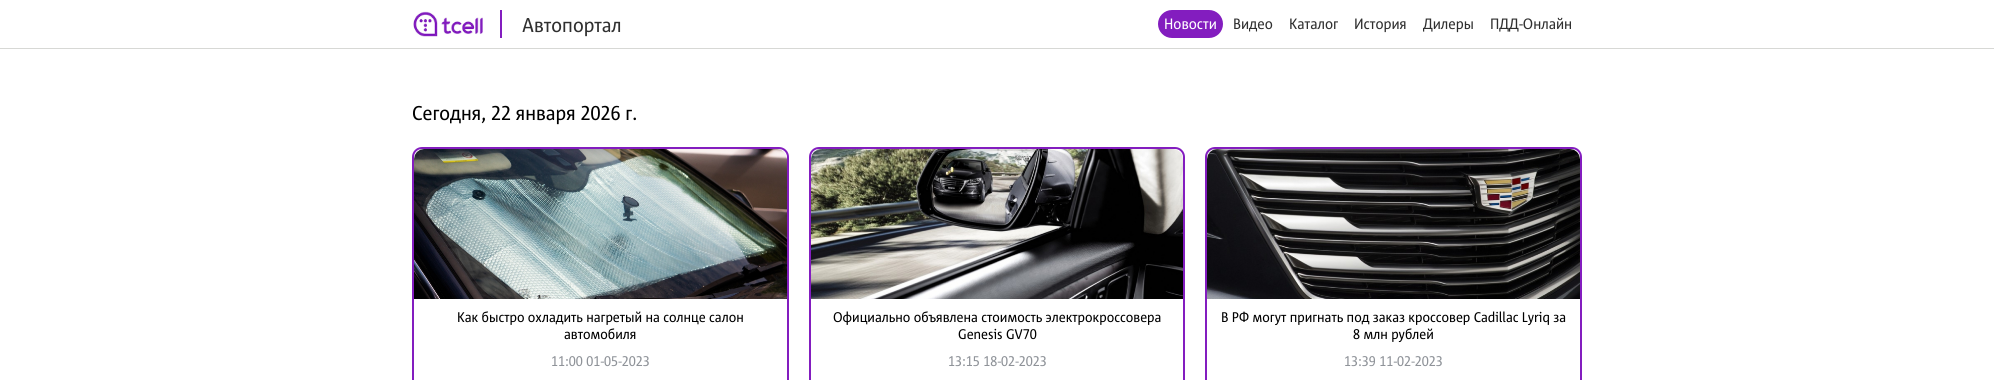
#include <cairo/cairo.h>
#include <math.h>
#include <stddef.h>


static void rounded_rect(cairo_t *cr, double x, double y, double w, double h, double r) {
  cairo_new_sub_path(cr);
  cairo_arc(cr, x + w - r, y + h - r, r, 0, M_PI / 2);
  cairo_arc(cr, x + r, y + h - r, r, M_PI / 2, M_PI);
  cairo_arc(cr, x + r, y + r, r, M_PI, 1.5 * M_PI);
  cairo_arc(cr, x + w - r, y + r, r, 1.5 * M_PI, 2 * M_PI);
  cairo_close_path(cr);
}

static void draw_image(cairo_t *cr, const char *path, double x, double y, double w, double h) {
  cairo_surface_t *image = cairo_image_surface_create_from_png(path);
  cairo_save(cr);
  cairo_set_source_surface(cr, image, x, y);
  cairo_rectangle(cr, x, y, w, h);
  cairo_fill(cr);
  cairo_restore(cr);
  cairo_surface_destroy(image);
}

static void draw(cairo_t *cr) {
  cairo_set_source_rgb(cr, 1, 1, 1);
  cairo_paint(cr);
  cairo_set_source_rgb(cr, 215 / 255.0, 216 / 255.0, 213 / 255.0);
  cairo_rectangle(cr, 0, 48, 1994, 1);
  cairo_fill(cr);
  draw_image(cr, "images/1.png", 413, 11, 70, 26);
  cairo_set_source_rgb(cr, 131 / 255.0, 29 / 255.0, 191 / 255.0);
  cairo_rectangle(cr, 500, 10, 2, 28);
  cairo_fill(cr);
  rounded_rect(cr, 1158, 10, 65, 28, 14);
  cairo_fill(cr);
  rounded_rect(cr, 413, 148, 375, 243, 9);
  cairo_stroke(cr);
  draw_image(cr, "images/2.png", 414, 149, 373, 150);
  rounded_rect(cr, 810, 148, 374, 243, 9);
  cairo_stroke(cr);
  draw_image(cr, "images/3.png", 811, 149, 372, 150);
  rounded_rect(cr, 1206, 148, 375, 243, 9);
  cairo_stroke(cr);
  draw_image(cr, "images/4.png", 1207, 149, 373, 150);
  cairo_select_font_face(cr, "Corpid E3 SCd", CAIRO_FONT_SLANT_NORMAL, CAIRO_FONT_WEIGHT_NORMAL);
  cairo_set_font_size(cr, 20);
  cairo_set_source_rgb(cr, 48 / 255.0, 48 / 255.0, 48 / 255.0);
  cairo_move_to(cr, 522, 32);
  cairo_show_text(cr, "Автопортал");
  cairo_set_font_size(cr, 15);
  cairo_set_source_rgb(cr, 1, 1, 1);
  cairo_move_to(cr, 1164, 29);
  cairo_show_text(cr, "Новости");
  cairo_set_source_rgb(cr, 48 / 255.0, 48 / 255.0, 48 / 255.0);
  cairo_move_to(cr, 1233, 29);
  cairo_show_text(cr, "Видео");
  cairo_move_to(cr, 1289, 29);
  cairo_show_text(cr, "Каталог");
  cairo_move_to(cr, 1354, 29);
  cairo_show_text(cr, "История");
  cairo_move_to(cr, 1423, 29);
  cairo_show_text(cr, "Дилеры");
  cairo_move_to(cr, 1490, 29);
  cairo_show_text(cr, "ПДД-Онлайн");
  cairo_set_font_size(cr, 20);
  cairo_set_source_rgb(cr, 0, 0, 0);
  cairo_move_to(cr, 412, 120);
  cairo_show_text(cr, "Сегодня, 22 января 2026 г.");
  cairo_set_font_size(cr, 14);
  cairo_move_to(cr, 457, 322);
  cairo_show_text(cr, "Как быстро охладить нагретый на солнце салон");
  cairo_move_to(cr, 564, 339);
  cairo_show_text(cr, "автомобиля");
  cairo_set_source_rgb(cr, 143 / 255.0, 147 / 255.0, 153 / 255.0);
  cairo_move_to(cr, 551, 366);
  cairo_show_text(cr, "11:00 01-05-2023");
  cairo_set_source_rgb(cr, 0, 0, 0);
  cairo_move_to(cr, 833, 322);
  cairo_show_text(cr, "Официально объявлена стоимость электрокроссовера");
  cairo_move_to(cr, 958, 339);
  cairo_show_text(cr, "Genesis GV70");
  cairo_set_source_rgb(cr, 143 / 255.0, 147 / 255.0, 153 / 255.0);
  cairo_move_to(cr, 948, 366);
  cairo_show_text(cr, "13:15 18-02-2023");
  cairo_set_source_rgb(cr, 0, 0, 0);
  cairo_move_to(cr, 1221, 322);
  cairo_show_text(cr, "В РФ могут пригнать под заказ кроссовер Cadillac Lyriq за");
  cairo_move_to(cr, 1353, 339);
  cairo_show_text(cr, "8 млн рублей");
  cairo_set_source_rgb(cr, 143 / 255.0, 147 / 255.0, 153 / 255.0);
  cairo_move_to(cr, 1344, 366);
  cairo_show_text(cr, "13:39 11-02-2023");
}

int main(void) {
  cairo_surface_t *surface = cairo_image_surface_create(CAIRO_FORMAT_RGB24, 1994, 380);
  cairo_t *cr = cairo_create(surface);
  cairo_font_options_t *options = cairo_font_options_create();
  cairo_font_options_set_hint_metrics(options, CAIRO_HINT_METRICS_OFF);
  cairo_font_options_set_hint_style(options, CAIRO_HINT_STYLE_NONE);
  cairo_set_font_options(cr, options);
  cairo_set_miter_limit(cr, 4);
  draw(cr);
  cairo_surface_write_to_png(surface, "out.png");
  cairo_font_options_destroy(options);
  cairo_destroy(cr);
  cairo_surface_destroy(surface);
  return 0;
}
